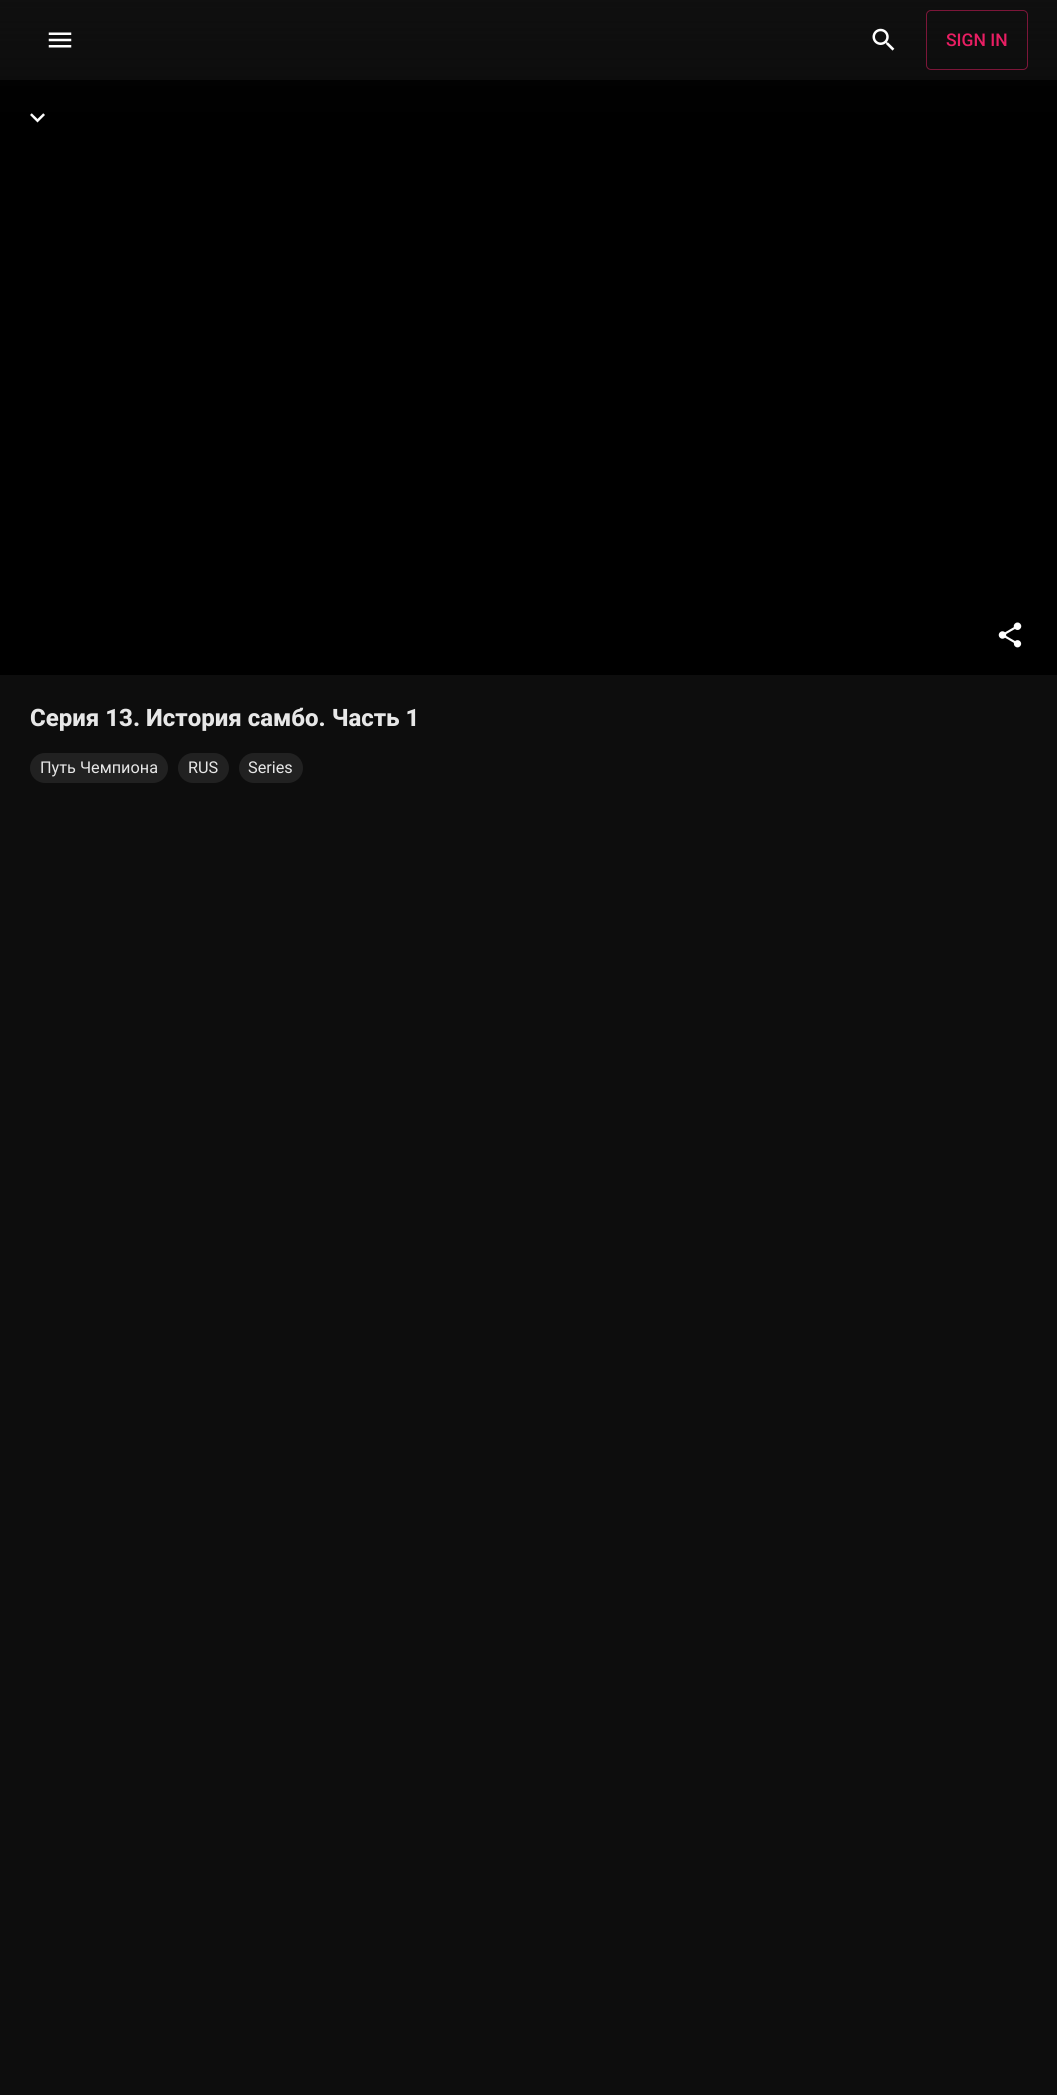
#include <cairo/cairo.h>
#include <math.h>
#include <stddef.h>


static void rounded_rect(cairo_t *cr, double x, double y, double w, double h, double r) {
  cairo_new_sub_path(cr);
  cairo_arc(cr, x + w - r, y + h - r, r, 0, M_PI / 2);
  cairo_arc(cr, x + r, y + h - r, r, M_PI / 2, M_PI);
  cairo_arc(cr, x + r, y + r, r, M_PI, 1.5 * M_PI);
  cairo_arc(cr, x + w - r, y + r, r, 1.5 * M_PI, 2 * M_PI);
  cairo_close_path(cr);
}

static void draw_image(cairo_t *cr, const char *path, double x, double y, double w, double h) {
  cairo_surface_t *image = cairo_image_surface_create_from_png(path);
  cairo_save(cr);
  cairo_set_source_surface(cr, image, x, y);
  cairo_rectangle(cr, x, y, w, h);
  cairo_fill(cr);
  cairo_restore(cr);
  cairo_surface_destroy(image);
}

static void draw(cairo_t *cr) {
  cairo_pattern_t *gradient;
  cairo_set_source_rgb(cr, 13 / 255.0, 13 / 255.0, 13 / 255.0);
  cairo_paint(cr);
  cairo_set_source_rgb(cr, 0, 0, 0);
  cairo_rectangle(cr, 0, 80, 1057, 595);
  cairo_fill(cr);
  draw_image(cr, "images/3.png", 30, 113, 15, 10);
  gradient = cairo_pattern_create_linear(529, 0, 529, 125);
  cairo_pattern_add_color_stop_rgba(gradient, 0, 16 / 255.0, 16 / 255.0, 16 / 255.0, 0.8);
  cairo_pattern_add_color_stop_rgba(gradient, 0.33, 16 / 255.0, 16 / 255.0, 16 / 255.0, 0.4);
  cairo_pattern_add_color_stop_rgba(gradient, 0.67, 16 / 255.0, 16 / 255.0, 16 / 255.0, 0.1);
  cairo_pattern_add_color_stop_rgba(gradient, 1, 16 / 255.0, 16 / 255.0, 16 / 255.0, 0);
  cairo_set_source(cr, gradient);
  cairo_pattern_destroy(gradient);
  cairo_rectangle(cr, 0, 0, 1057, 116);
  cairo_fill(cr);
  draw_image(cr, "images/1.png", 48, 32, 24, 16);
  draw_image(cr, "images/2.png", 872, 28, 23, 23);
  rounded_rect(cr, 926.5, 10.5, 101, 59, 4.5);
  cairo_set_source_rgb(cr, 124 / 255.0, 22 / 255.0, 57 / 255.0);
  cairo_set_line_width(cr, 1);
  cairo_stroke(cr);
  draw_image(cr, "images/4.png", 998, 622, 24, 26);
  cairo_set_source_rgb(cr, 33 / 255.0, 33 / 255.0, 33 / 255.0);
  rounded_rect(cr, 30, 753, 138, 30, 15);
  cairo_fill(cr);
  rounded_rect(cr, 178, 753, 51, 30, 15);
  cairo_fill(cr);
  rounded_rect(cr, 239, 753, 64, 30, 15);
  cairo_fill(cr);
  cairo_select_font_face(cr, "Roboto Medium", CAIRO_FONT_SLANT_NORMAL, CAIRO_FONT_WEIGHT_NORMAL);
  cairo_set_font_size(cr, 17.5);
  cairo_set_source_rgb(cr, 233 / 255.0, 30 / 255.0, 99 / 255.0);
  cairo_move_to(cr, 946, 46);
  cairo_show_text(cr, "SIGN IN");
  cairo_select_font_face(cr, "Roboto ExtraBold", CAIRO_FONT_SLANT_NORMAL, CAIRO_FONT_WEIGHT_NORMAL);
  cairo_set_font_size(cr, 24);
  cairo_set_source_rgb(cr, 231 / 255.0, 231 / 255.0, 231 / 255.0);
  cairo_move_to(cr, 30, 726);
  cairo_show_text(cr, "Серия 13. История самбо. Часть 1");
  cairo_select_font_face(cr, "Roboto", CAIRO_FONT_SLANT_NORMAL, CAIRO_FONT_WEIGHT_NORMAL);
  cairo_set_font_size(cr, 16.25);
  cairo_move_to(cr, 40, 773);
  cairo_show_text(cr, "Путь Чемпиона");
  cairo_move_to(cr, 188, 773);
  cairo_show_text(cr, "RUS");
  cairo_move_to(cr, 248, 773);
  cairo_show_text(cr, "Series");
}

int main(void) {
  cairo_surface_t *surface = cairo_image_surface_create(CAIRO_FORMAT_RGB24, 1057, 2095);
  cairo_t *cr = cairo_create(surface);
  cairo_font_options_t *options = cairo_font_options_create();
  cairo_font_options_set_hint_metrics(options, CAIRO_HINT_METRICS_OFF);
  cairo_font_options_set_hint_style(options, CAIRO_HINT_STYLE_NONE);
  cairo_set_font_options(cr, options);
  cairo_set_miter_limit(cr, 4);
  draw(cr);
  cairo_surface_write_to_png(surface, "out.png");
  cairo_font_options_destroy(options);
  cairo_destroy(cr);
  cairo_surface_destroy(surface);
  return 0;
}
